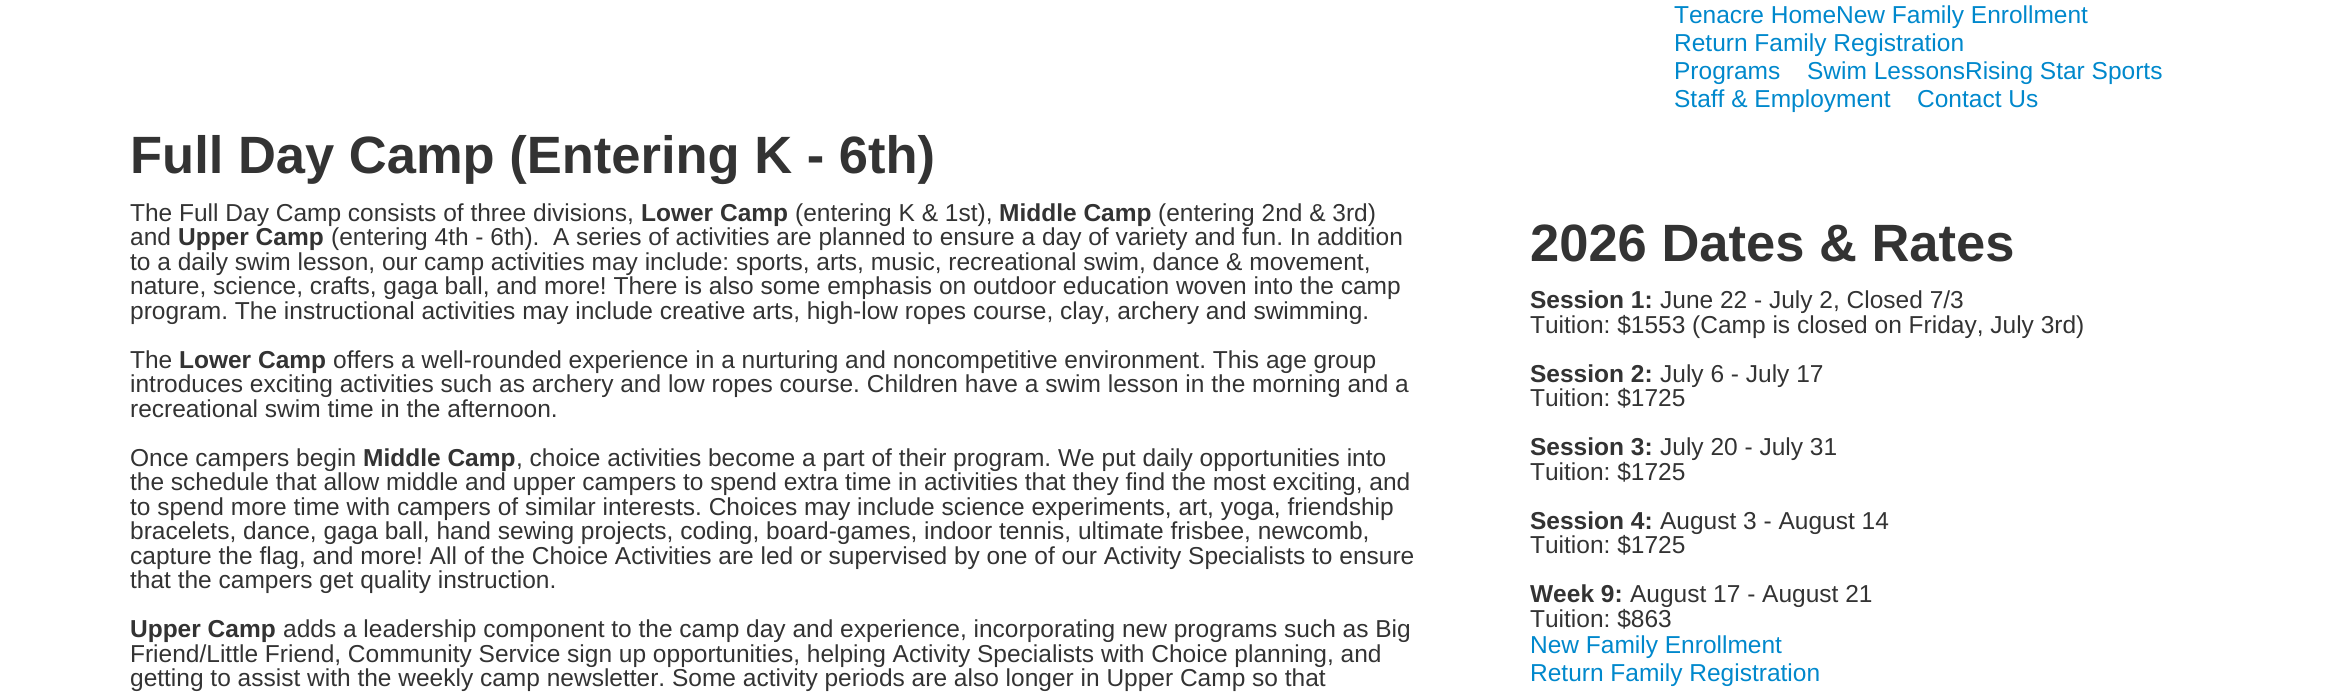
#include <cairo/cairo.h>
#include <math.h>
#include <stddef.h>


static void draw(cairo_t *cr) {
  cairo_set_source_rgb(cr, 1, 1, 1);
  cairo_paint(cr);
  cairo_select_font_face(cr, "Liberation Sans", CAIRO_FONT_SLANT_NORMAL, CAIRO_FONT_WEIGHT_NORMAL);
  cairo_set_font_size(cr, 24.5);
  cairo_set_source_rgb(cr, 0, 136 / 255.0, 204 / 255.0);
  cairo_move_to(cr, 1674, 23);
  cairo_show_text(cr, "Tenacre HomeNew Family Enrollment");
  cairo_move_to(cr, 1674, 51);
  cairo_show_text(cr, "Return Family Registration");
  cairo_move_to(cr, 1674, 79);
  cairo_show_text(cr, "Programs");
  cairo_move_to(cr, 1807, 79);
  cairo_show_text(cr, "Swim LessonsRising Star Sports");
  cairo_move_to(cr, 1674, 107);
  cairo_show_text(cr, "Staff & Employment");
  cairo_move_to(cr, 1917, 107);
  cairo_show_text(cr, "Contact Us");
  cairo_select_font_face(cr, "Liberation Sans", CAIRO_FONT_SLANT_NORMAL, CAIRO_FONT_WEIGHT_BOLD);
  cairo_set_font_size(cr, 52.5);
  cairo_set_source_rgb(cr, 51 / 255.0, 51 / 255.0, 51 / 255.0);
  cairo_move_to(cr, 130, 173);
  cairo_show_text(cr, "Full Day Camp (Entering K - 6th)");
  cairo_select_font_face(cr, "Liberation Sans", CAIRO_FONT_SLANT_NORMAL, CAIRO_FONT_WEIGHT_NORMAL);
  cairo_set_font_size(cr, 24.5);
  cairo_move_to(cr, 130, 221);
  cairo_show_text(cr, "The Full Day Camp consists of three divisions,");
  cairo_select_font_face(cr, "Liberation Sans", CAIRO_FONT_SLANT_NORMAL, CAIRO_FONT_WEIGHT_BOLD);
  cairo_move_to(cr, 641, 221);
  cairo_show_text(cr, "Lower Camp");
  cairo_select_font_face(cr, "Liberation Sans", CAIRO_FONT_SLANT_NORMAL, CAIRO_FONT_WEIGHT_NORMAL);
  cairo_move_to(cr, 795, 221);
  cairo_show_text(cr, "(entering K & 1st),");
  cairo_select_font_face(cr, "Liberation Sans", CAIRO_FONT_SLANT_NORMAL, CAIRO_FONT_WEIGHT_BOLD);
  cairo_move_to(cr, 999, 221);
  cairo_show_text(cr, "Middle Camp");
  cairo_select_font_face(cr, "Liberation Sans", CAIRO_FONT_SLANT_NORMAL, CAIRO_FONT_WEIGHT_NORMAL);
  cairo_move_to(cr, 1158, 221);
  cairo_show_text(cr, "(entering 2nd & 3rd)");
  cairo_move_to(cr, 130, 245);
  cairo_show_text(cr, "and");
  cairo_select_font_face(cr, "Liberation Sans", CAIRO_FONT_SLANT_NORMAL, CAIRO_FONT_WEIGHT_BOLD);
  cairo_move_to(cr, 178, 245);
  cairo_show_text(cr, "Upper Camp");
  cairo_select_font_face(cr, "Liberation Sans", CAIRO_FONT_SLANT_NORMAL, CAIRO_FONT_WEIGHT_NORMAL);
  cairo_move_to(cr, 331, 245);
  cairo_show_text(cr, "(entering 4th - 6th).  A series of activities are planned to ensure a day of variety and fun. In addition");
  cairo_move_to(cr, 130, 270);
  cairo_show_text(cr, "to a daily swim lesson, our camp activities may include: sports, arts, music, recreational swim, dance & movement,");
  cairo_move_to(cr, 130, 294);
  cairo_show_text(cr, "nature, science, crafts, gaga ball, and more! There is also some emphasis on outdoor education woven into the camp");
  cairo_move_to(cr, 130, 319);
  cairo_show_text(cr, "program. The instructional activities may include creative arts, high-low ropes course, clay, archery and swimming.");
  cairo_move_to(cr, 130, 368);
  cairo_show_text(cr, "The");
  cairo_select_font_face(cr, "Liberation Sans", CAIRO_FONT_SLANT_NORMAL, CAIRO_FONT_WEIGHT_BOLD);
  cairo_move_to(cr, 179, 368);
  cairo_show_text(cr, "Lower Camp");
  cairo_select_font_face(cr, "Liberation Sans", CAIRO_FONT_SLANT_NORMAL, CAIRO_FONT_WEIGHT_NORMAL);
  cairo_move_to(cr, 333, 368);
  cairo_show_text(cr, "offers a well-rounded experience in a nurturing and noncompetitive environment. This age group");
  cairo_move_to(cr, 130, 392);
  cairo_show_text(cr, "introduces exciting activities such as archery and low ropes course. Children have a swim lesson in the morning and a");
  cairo_move_to(cr, 130, 417);
  cairo_show_text(cr, "recreational swim time in the afternoon.");
  cairo_move_to(cr, 130, 466);
  cairo_show_text(cr, "Once campers begin");
  cairo_select_font_face(cr, "Liberation Sans", CAIRO_FONT_SLANT_NORMAL, CAIRO_FONT_WEIGHT_BOLD);
  cairo_move_to(cr, 363, 466);
  cairo_show_text(cr, "Middle Camp");
  cairo_select_font_face(cr, "Liberation Sans", CAIRO_FONT_SLANT_NORMAL, CAIRO_FONT_WEIGHT_NORMAL);
  cairo_move_to(cr, 516, 466);
  cairo_show_text(cr, ", choice activities become a part of their program. We put daily opportunities into");
  cairo_move_to(cr, 130, 490);
  cairo_show_text(cr, "the schedule that allow middle and upper campers to spend extra time in activities that they find the most exciting, and");
  cairo_move_to(cr, 130, 515);
  cairo_show_text(cr, "to spend more time with campers of similar interests. Choices may include science experiments, art, yoga, friendship");
  cairo_move_to(cr, 130, 539);
  cairo_show_text(cr, "bracelets, dance, gaga ball, hand sewing projects, coding, board-games, indoor tennis, ultimate frisbee, newcomb,");
  cairo_move_to(cr, 130, 564);
  cairo_show_text(cr, "capture the flag, and more! All of the Choice Activities are led or supervised by one of our Activity Specialists to ensure");
  cairo_move_to(cr, 130, 588);
  cairo_show_text(cr, "that the campers get quality instruction.");
  cairo_select_font_face(cr, "Liberation Sans", CAIRO_FONT_SLANT_NORMAL, CAIRO_FONT_WEIGHT_BOLD);
  cairo_move_to(cr, 130, 637);
  cairo_show_text(cr, "Upper Camp");
  cairo_select_font_face(cr, "Liberation Sans", CAIRO_FONT_SLANT_NORMAL, CAIRO_FONT_WEIGHT_NORMAL);
  cairo_move_to(cr, 283, 637);
  cairo_show_text(cr, "adds a leadership component to the camp day and experience, incorporating new programs such as Big");
  cairo_move_to(cr, 130, 662);
  cairo_show_text(cr, "Friend/Little Friend, Community Service sign up opportunities, helping Activity Specialists with Choice planning, and");
  cairo_move_to(cr, 130, 686);
  cairo_show_text(cr, "getting to assist with the weekly camp newsletter. Some activity periods are also longer in Upper Camp so that");
  cairo_select_font_face(cr, "Liberation Sans", CAIRO_FONT_SLANT_NORMAL, CAIRO_FONT_WEIGHT_BOLD);
  cairo_set_font_size(cr, 52.5);
  cairo_move_to(cr, 1530, 261);
  cairo_show_text(cr, "2026 Dates & Rates");
  cairo_set_font_size(cr, 24.5);
  cairo_move_to(cr, 1530, 308);
  cairo_show_text(cr, "Session 1:");
  cairo_select_font_face(cr, "Liberation Sans", CAIRO_FONT_SLANT_NORMAL, CAIRO_FONT_WEIGHT_NORMAL);
  cairo_move_to(cr, 1660, 308);
  cairo_show_text(cr, "June 22 - July 2, Closed 7/3");
  cairo_move_to(cr, 1530, 333);
  cairo_show_text(cr, "Tuition: $1553 (Camp is closed on Friday, July 3rd)");
  cairo_select_font_face(cr, "Liberation Sans", CAIRO_FONT_SLANT_NORMAL, CAIRO_FONT_WEIGHT_BOLD);
  cairo_move_to(cr, 1530, 382);
  cairo_show_text(cr, "Session 2:");
  cairo_select_font_face(cr, "Liberation Sans", CAIRO_FONT_SLANT_NORMAL, CAIRO_FONT_WEIGHT_NORMAL);
  cairo_move_to(cr, 1660, 382);
  cairo_show_text(cr, "July 6 - July 17");
  cairo_move_to(cr, 1530, 406);
  cairo_show_text(cr, "Tuition: $1725");
  cairo_select_font_face(cr, "Liberation Sans", CAIRO_FONT_SLANT_NORMAL, CAIRO_FONT_WEIGHT_BOLD);
  cairo_move_to(cr, 1530, 455);
  cairo_show_text(cr, "Session 3:");
  cairo_select_font_face(cr, "Liberation Sans", CAIRO_FONT_SLANT_NORMAL, CAIRO_FONT_WEIGHT_NORMAL);
  cairo_move_to(cr, 1660, 455);
  cairo_show_text(cr, "July 20 - July 31");
  cairo_move_to(cr, 1530, 480);
  cairo_show_text(cr, "Tuition: $1725");
  cairo_select_font_face(cr, "Liberation Sans", CAIRO_FONT_SLANT_NORMAL, CAIRO_FONT_WEIGHT_BOLD);
  cairo_move_to(cr, 1530, 529);
  cairo_show_text(cr, "Session 4:");
  cairo_select_font_face(cr, "Liberation Sans", CAIRO_FONT_SLANT_NORMAL, CAIRO_FONT_WEIGHT_NORMAL);
  cairo_move_to(cr, 1660, 529);
  cairo_show_text(cr, "August 3 - August 14");
  cairo_move_to(cr, 1530, 553);
  cairo_show_text(cr, "Tuition: $1725");
  cairo_select_font_face(cr, "Liberation Sans", CAIRO_FONT_SLANT_NORMAL, CAIRO_FONT_WEIGHT_BOLD);
  cairo_move_to(cr, 1530, 602);
  cairo_show_text(cr, "Week 9:");
  cairo_select_font_face(cr, "Liberation Sans", CAIRO_FONT_SLANT_NORMAL, CAIRO_FONT_WEIGHT_NORMAL);
  cairo_move_to(cr, 1630, 602);
  cairo_show_text(cr, "August 17 - August 21");
  cairo_move_to(cr, 1530, 627);
  cairo_show_text(cr, "Tuition: $863");
  cairo_set_source_rgb(cr, 0, 136 / 255.0, 204 / 255.0);
  cairo_move_to(cr, 1530, 653);
  cairo_show_text(cr, "New Family Enrollment");
  cairo_move_to(cr, 1530, 681);
  cairo_show_text(cr, "Return Family Registration");
}

int main(void) {
  cairo_surface_t *surface = cairo_image_surface_create(CAIRO_FORMAT_RGB24, 2334, 693);
  cairo_t *cr = cairo_create(surface);
  cairo_font_options_t *options = cairo_font_options_create();
  cairo_font_options_set_hint_metrics(options, CAIRO_HINT_METRICS_OFF);
  cairo_font_options_set_hint_style(options, CAIRO_HINT_STYLE_NONE);
  cairo_set_font_options(cr, options);
  cairo_set_miter_limit(cr, 4);
  draw(cr);
  cairo_surface_write_to_png(surface, "out.png");
  cairo_font_options_destroy(options);
  cairo_destroy(cr);
  cairo_surface_destroy(surface);
  return 0;
}
